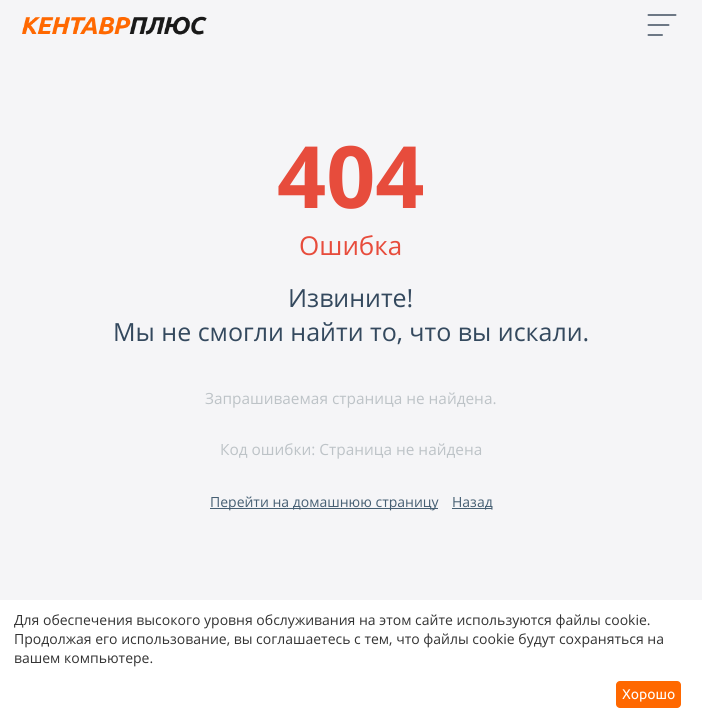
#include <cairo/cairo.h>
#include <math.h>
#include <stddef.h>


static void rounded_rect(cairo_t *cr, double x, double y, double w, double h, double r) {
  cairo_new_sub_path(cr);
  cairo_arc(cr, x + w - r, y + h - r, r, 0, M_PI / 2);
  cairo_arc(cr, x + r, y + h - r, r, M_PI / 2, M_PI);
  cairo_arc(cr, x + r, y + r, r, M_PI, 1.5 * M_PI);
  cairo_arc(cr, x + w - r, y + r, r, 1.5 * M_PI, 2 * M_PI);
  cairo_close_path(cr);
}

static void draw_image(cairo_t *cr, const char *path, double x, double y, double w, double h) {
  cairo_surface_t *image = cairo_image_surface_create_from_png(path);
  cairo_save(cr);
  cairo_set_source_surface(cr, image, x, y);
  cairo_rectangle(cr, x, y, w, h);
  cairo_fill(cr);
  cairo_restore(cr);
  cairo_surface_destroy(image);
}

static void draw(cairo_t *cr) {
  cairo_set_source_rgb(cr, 245 / 255.0, 245 / 255.0, 247 / 255.0);
  cairo_paint(cr);
  draw_image(cr, "images/1.png", 22, 16, 185, 19);
  cairo_new_path(cr);
  cairo_move_to(cr, 675.5, 15);
  cairo_line_to(cr, 648.5, 15);
  cairo_move_to(cr, 668.5, 25);
  cairo_line_to(cr, 648.5, 25);
  cairo_move_to(cr, 662, 35);
  cairo_line_to(cr, 648.5, 35);
  cairo_set_source_rgb(cr, 109 / 255.0, 120 / 255.0, 133 / 255.0);
  cairo_set_line_cap(cr, CAIRO_LINE_CAP_ROUND);
  cairo_stroke(cr);
  cairo_set_source_rgb(cr, 70 / 255.0, 95 / 255.0, 115 / 255.0);
  cairo_rectangle(cr, 210, 508, 228, 1);
  cairo_fill(cr);
  cairo_rectangle(cr, 452, 508, 40, 1);
  cairo_fill(cr);
  cairo_set_source_rgb(cr, 1, 1, 1);
  cairo_rectangle(cr, 0, 600, 702, 122);
  cairo_fill(cr);
  cairo_set_source_rgb(cr, 1, 104 / 255.0, 0);
  rounded_rect(cr, 616, 681, 65, 27, 4);
  cairo_fill(cr);
  cairo_select_font_face(cr, "Open Sans", CAIRO_FONT_SLANT_NORMAL, CAIRO_FONT_WEIGHT_BOLD);
  cairo_set_font_size(cr, 86);
  cairo_set_source_rgb(cr, 231 / 255.0, 76 / 255.0, 60 / 255.0);
  cairo_move_to(cr, 277, 208);
  cairo_show_text(cr, "404");
  cairo_select_font_face(cr, "Open Sans", CAIRO_FONT_SLANT_NORMAL, CAIRO_FONT_WEIGHT_NORMAL);
  cairo_set_font_size(cr, 26);
  cairo_move_to(cr, 299, 255);
  cairo_show_text(cr, "Ошибка");
  cairo_set_font_size(cr, 25);
  cairo_set_source_rgb(cr, 52 / 255.0, 73 / 255.0, 94 / 255.0);
  cairo_move_to(cr, 288, 307);
  cairo_show_text(cr, "Извините!");
  cairo_move_to(cr, 113, 341);
  cairo_show_text(cr, "Мы не смогли найти то, что вы искали.");
  cairo_set_font_size(cr, 15.4);
  cairo_set_source_rgb(cr, 189 / 255.0, 195 / 255.0, 199 / 255.0);
  cairo_move_to(cr, 205, 404);
  cairo_show_text(cr, "Запрашиваемая страница не найдена.");
  cairo_move_to(cr, 220, 455);
  cairo_show_text(cr, "Код ошибки: Страница не найдена");
  cairo_set_font_size(cr, 14);
  cairo_set_source_rgb(cr, 70 / 255.0, 95 / 255.0, 115 / 255.0);
  cairo_move_to(cr, 210, 507);
  cairo_show_text(cr, "Перейти на домашнюю страницу");
  cairo_move_to(cr, 452, 507);
  cairo_show_text(cr, "Назад");
  cairo_set_source_rgb(cr, 51 / 255.0, 51 / 255.0, 51 / 255.0);
  cairo_move_to(cr, 14, 625);
  cairo_show_text(cr, "Для обеспечения высокого уровня обслуживания на этом сайте используются файлы cookie.");
  cairo_move_to(cr, 14, 644);
  cairo_show_text(cr, "Продолжая его использование, вы соглашаетесь с тем, что файлы cookie будут сохраняться на");
  cairo_move_to(cr, 14, 663);
  cairo_show_text(cr, "вашем компьютере.");
  cairo_select_font_face(cr, "Ubuntu", CAIRO_FONT_SLANT_NORMAL, CAIRO_FONT_WEIGHT_NORMAL);
  cairo_set_source_rgb(cr, 1, 1, 1);
  cairo_move_to(cr, 622, 699);
  cairo_show_text(cr, "Хорошо");
}

int main(void) {
  cairo_surface_t *surface = cairo_image_surface_create(CAIRO_FORMAT_RGB24, 702, 722);
  cairo_t *cr = cairo_create(surface);
  cairo_font_options_t *options = cairo_font_options_create();
  cairo_font_options_set_hint_metrics(options, CAIRO_HINT_METRICS_OFF);
  cairo_font_options_set_hint_style(options, CAIRO_HINT_STYLE_NONE);
  cairo_set_font_options(cr, options);
  cairo_set_miter_limit(cr, 4);
  draw(cr);
  cairo_surface_write_to_png(surface, "out.png");
  cairo_font_options_destroy(options);
  cairo_destroy(cr);
  cairo_surface_destroy(surface);
  return 0;
}
